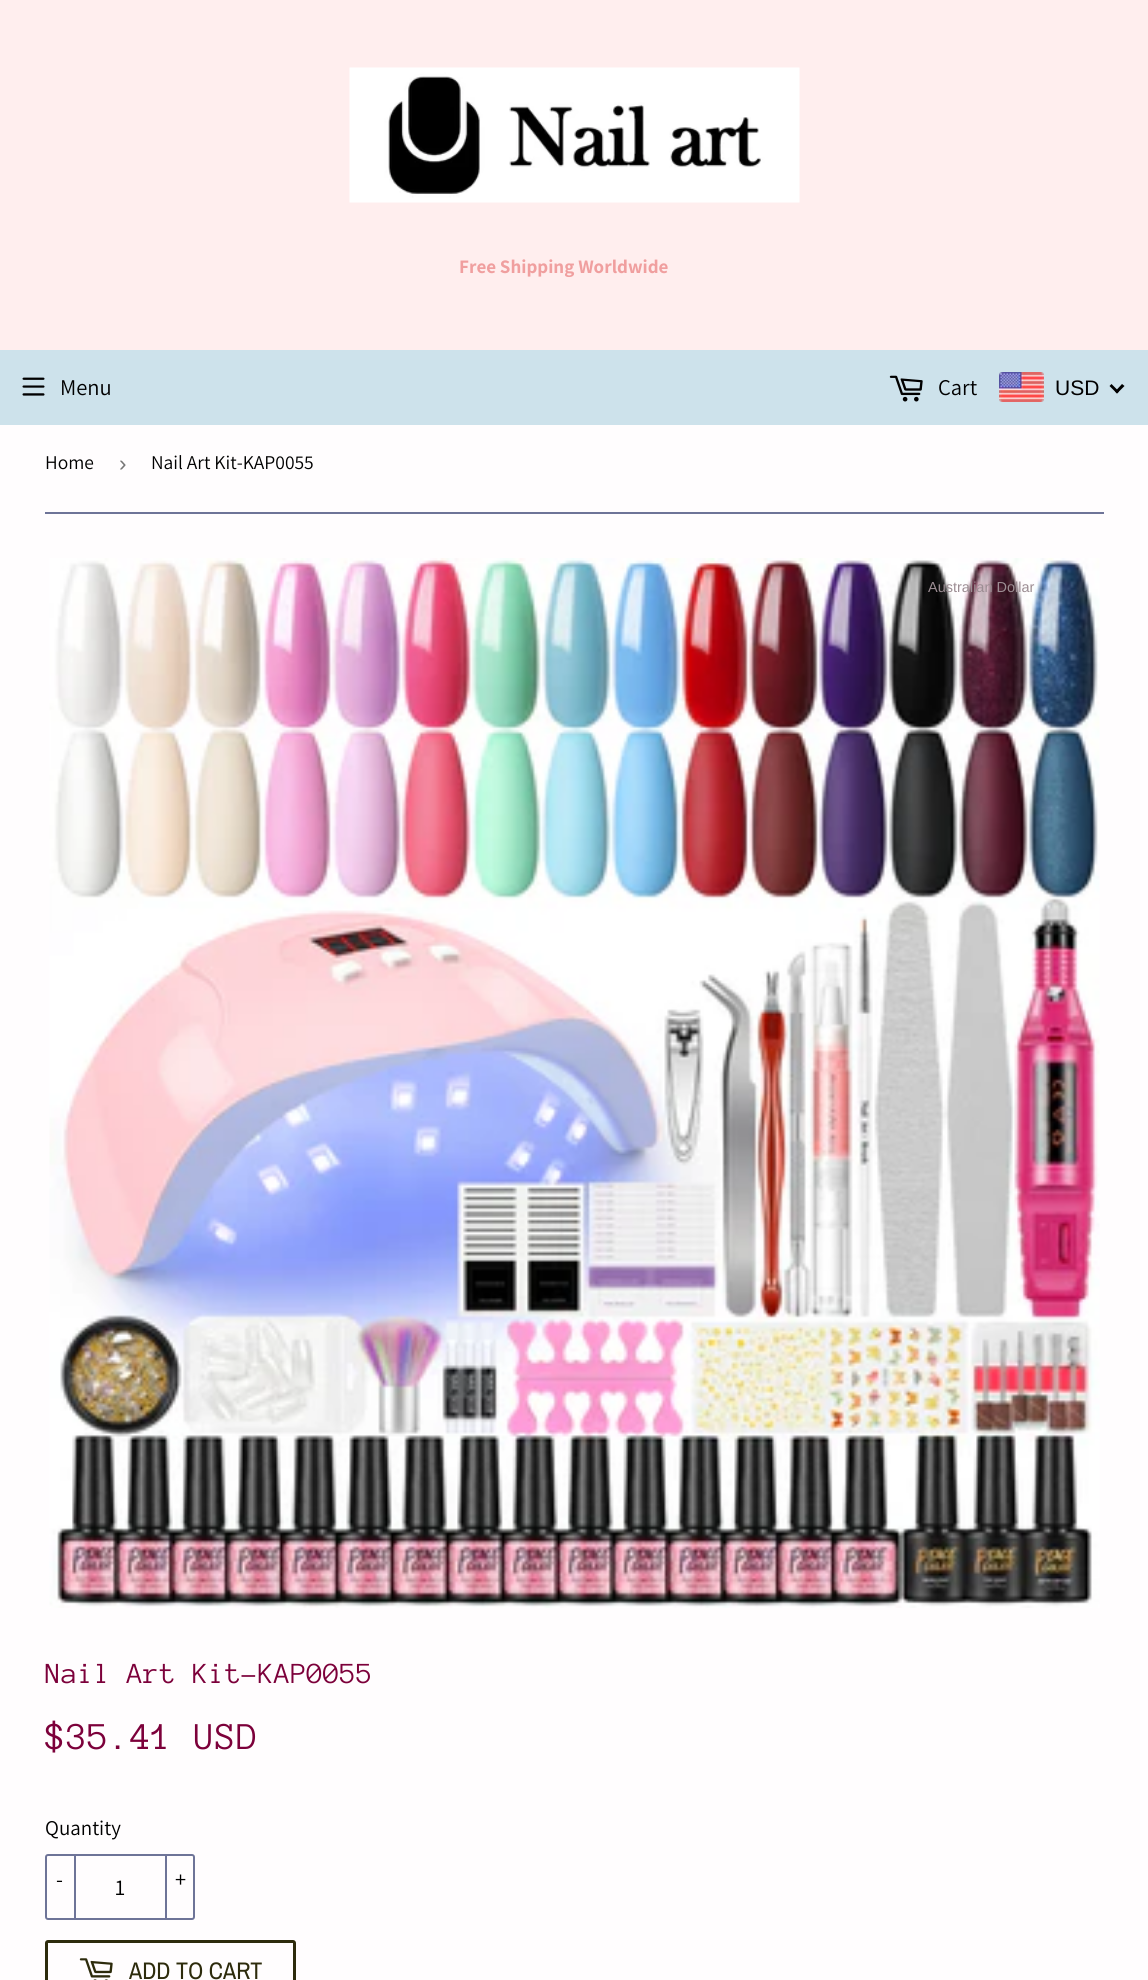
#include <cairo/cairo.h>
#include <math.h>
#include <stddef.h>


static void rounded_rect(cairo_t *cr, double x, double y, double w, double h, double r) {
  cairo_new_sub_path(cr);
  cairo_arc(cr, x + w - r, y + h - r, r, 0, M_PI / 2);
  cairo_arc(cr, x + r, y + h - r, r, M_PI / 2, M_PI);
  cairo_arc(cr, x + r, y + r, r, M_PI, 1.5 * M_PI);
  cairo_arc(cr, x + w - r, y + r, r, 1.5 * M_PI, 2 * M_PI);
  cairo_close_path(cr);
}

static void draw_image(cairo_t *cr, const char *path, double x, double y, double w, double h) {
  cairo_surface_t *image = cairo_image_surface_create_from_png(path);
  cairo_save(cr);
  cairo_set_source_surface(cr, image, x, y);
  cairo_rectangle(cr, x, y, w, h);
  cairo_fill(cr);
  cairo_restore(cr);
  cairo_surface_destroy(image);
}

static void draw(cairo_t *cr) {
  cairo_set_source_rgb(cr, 1, 253 / 255.0, 254 / 255.0);
  cairo_paint(cr);
  cairo_set_source_rgb(cr, 1, 238 / 255.0, 238 / 255.0);
  cairo_rectangle(cr, 0, 0, 1148, 350);
  cairo_fill(cr);
  draw_image(cr, "images/1.png", 349, 67, 451, 136);
  cairo_set_source_rgb(cr, 205 / 255.0, 226 / 255.0, 235 / 255.0);
  cairo_rectangle(cr, 0, 350, 1148, 75);
  cairo_fill(cr);
  draw_image(cr, "images/2.png", 22, 377, 23, 19);
  draw_image(cr, "images/3.png", 889, 375, 34, 27);
  draw_image(cr, "images/4.png", 999, 372, 45, 30);
  cairo_set_source_rgb(cr, 0, 0, 0);
  cairo_new_path(cr);
  cairo_move_to(cr, 1122, 384);
  cairo_line_to(cr, 1124.5, 386);
  cairo_line_to(cr, 1117, 393.5);
  cairo_line_to(cr, 1115, 391.5);
  cairo_close_path(cr);
  cairo_fill(cr);
  cairo_new_path(cr);
  cairo_move_to(cr, 1111.5, 384);
  cairo_line_to(cr, 1119, 391.5);
  cairo_line_to(cr, 1117, 393.5);
  cairo_line_to(cr, 1109.5, 386);
  cairo_close_path(cr);
  cairo_fill(cr);
  cairo_set_source_rgb(cr, 110 / 255.0, 116 / 255.0, 152 / 255.0);
  cairo_rectangle(cr, 45, 512, 1059, 2);
  cairo_fill(cr);
  draw_image(cr, "images/5.png", 49, 558, 1051, 1050);
  rounded_rect(cr, 46, 1855, 148, 64, 2);
  cairo_stroke(cr);
  cairo_rectangle(cr, 74, 1854, 2, 66);
  cairo_fill(cr);
  cairo_rectangle(cr, 165, 1854, 2, 66);
  cairo_fill(cr);
  rounded_rect(cr, 46.5, 1941.5, 248, 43, 1.5);
  cairo_set_source_rgb(cr, 45 / 255.0, 43 / 255.0, 12 / 255.0);
  cairo_set_line_width(cr, 3);
  cairo_stroke(cr);
  draw_image(cr, "images/6.png", 79, 1958, 34, 22);
  cairo_select_font_face(cr, "Assistant", CAIRO_FONT_SLANT_NORMAL, CAIRO_FONT_WEIGHT_BOLD);
  cairo_set_font_size(cr, 19.1);
  cairo_set_source_rgb(cr, 240 / 255.0, 159 / 255.0, 159 / 255.0);
  cairo_move_to(cr, 459, 273);
  cairo_show_text(cr, "Free Shipping Worldwide");
  cairo_select_font_face(cr, "Assistant", CAIRO_FONT_SLANT_NORMAL, CAIRO_FONT_WEIGHT_NORMAL);
  cairo_set_font_size(cr, 22.5);
  cairo_set_source_rgb(cr, 0, 0, 0);
  cairo_move_to(cr, 60, 395);
  cairo_show_text(cr, "Menu");
  cairo_move_to(cr, 938, 395);
  cairo_show_text(cr, "Cart");
  cairo_select_font_face(cr, "Liberation Sans", CAIRO_FONT_SLANT_NORMAL, CAIRO_FONT_WEIGHT_NORMAL);
  cairo_set_font_size(cr, 21);
  cairo_move_to(cr, 1055, 395);
  cairo_show_text(cr, "USD");
  cairo_set_font_size(cr, 14.5);
  cairo_set_source_rgb(cr, 156 / 255.0, 141 / 255.0, 147 / 255.0);
  cairo_move_to(cr, 928, 592);
  cairo_show_text(cr, "Australian Dollar");
  cairo_select_font_face(cr, "Assistant", CAIRO_FONT_SLANT_NORMAL, CAIRO_FONT_WEIGHT_NORMAL);
  cairo_set_font_size(cr, 19.5);
  cairo_set_source_rgb(cr, 0, 0, 0);
  cairo_move_to(cr, 45, 469);
  cairo_show_text(cr, "Home");
  cairo_select_font_face(cr, "Liberation Sans", CAIRO_FONT_SLANT_NORMAL, CAIRO_FONT_WEIGHT_NORMAL);
  cairo_set_font_size(cr, 22.5);
  cairo_set_source_rgb(cr, 118 / 255.0, 118 / 255.0, 118 / 255.0);
  cairo_move_to(cr, 119, 471);
  cairo_show_text(cr, "›");
  cairo_select_font_face(cr, "Assistant", CAIRO_FONT_SLANT_NORMAL, CAIRO_FONT_WEIGHT_NORMAL);
  cairo_set_font_size(cr, 19.5);
  cairo_set_source_rgb(cr, 0, 0, 0);
  cairo_move_to(cr, 151, 469);
  cairo_show_text(cr, "Nail Art Kit-KAP0055");
  cairo_select_font_face(cr, "Anonymous Pro", CAIRO_FONT_SLANT_NORMAL, CAIRO_FONT_WEIGHT_NORMAL);
  cairo_set_font_size(cr, 30);
  cairo_set_source_rgb(cr, 124 / 255.0, 0, 58 / 255.0);
  cairo_move_to(cr, 45, 1683);
  cairo_show_text(cr, "Nail Art Kit-KAP0055");
  cairo_set_font_size(cr, 39);
  cairo_move_to(cr, 45, 1749);
  cairo_show_text(cr, "$35.41 USD");
  cairo_select_font_face(cr, "Assistant", CAIRO_FONT_SLANT_NORMAL, CAIRO_FONT_WEIGHT_NORMAL);
  cairo_set_font_size(cr, 21);
  cairo_set_source_rgb(cr, 0, 0, 0);
  cairo_move_to(cr, 45, 1835);
  cairo_show_text(cr, "Quantity");
  cairo_set_font_size(cr, 22.5);
  cairo_move_to(cr, 56, 1887);
  cairo_show_text(cr, "-");
  cairo_move_to(cr, 115, 1895);
  cairo_show_text(cr, "1");
  cairo_move_to(cr, 175, 1887);
  cairo_show_text(cr, "+");
  cairo_select_font_face(cr, "Archivo Narrow", CAIRO_FONT_SLANT_NORMAL, CAIRO_FONT_WEIGHT_NORMAL);
  cairo_set_font_size(cr, 24);
  cairo_set_source_rgb(cr, 45 / 255.0, 43 / 255.0, 12 / 255.0);
  cairo_move_to(cr, 129, 1979);
  cairo_show_text(cr, "ADD TO CART");
}

int main(void) {
  cairo_surface_t *surface = cairo_image_surface_create(CAIRO_FORMAT_RGB24, 1148, 1980);
  cairo_t *cr = cairo_create(surface);
  cairo_font_options_t *options = cairo_font_options_create();
  cairo_font_options_set_hint_metrics(options, CAIRO_HINT_METRICS_OFF);
  cairo_font_options_set_hint_style(options, CAIRO_HINT_STYLE_NONE);
  cairo_set_font_options(cr, options);
  cairo_set_miter_limit(cr, 4);
  draw(cr);
  cairo_surface_write_to_png(surface, "out.png");
  cairo_font_options_destroy(options);
  cairo_destroy(cr);
  cairo_surface_destroy(surface);
  return 0;
}
